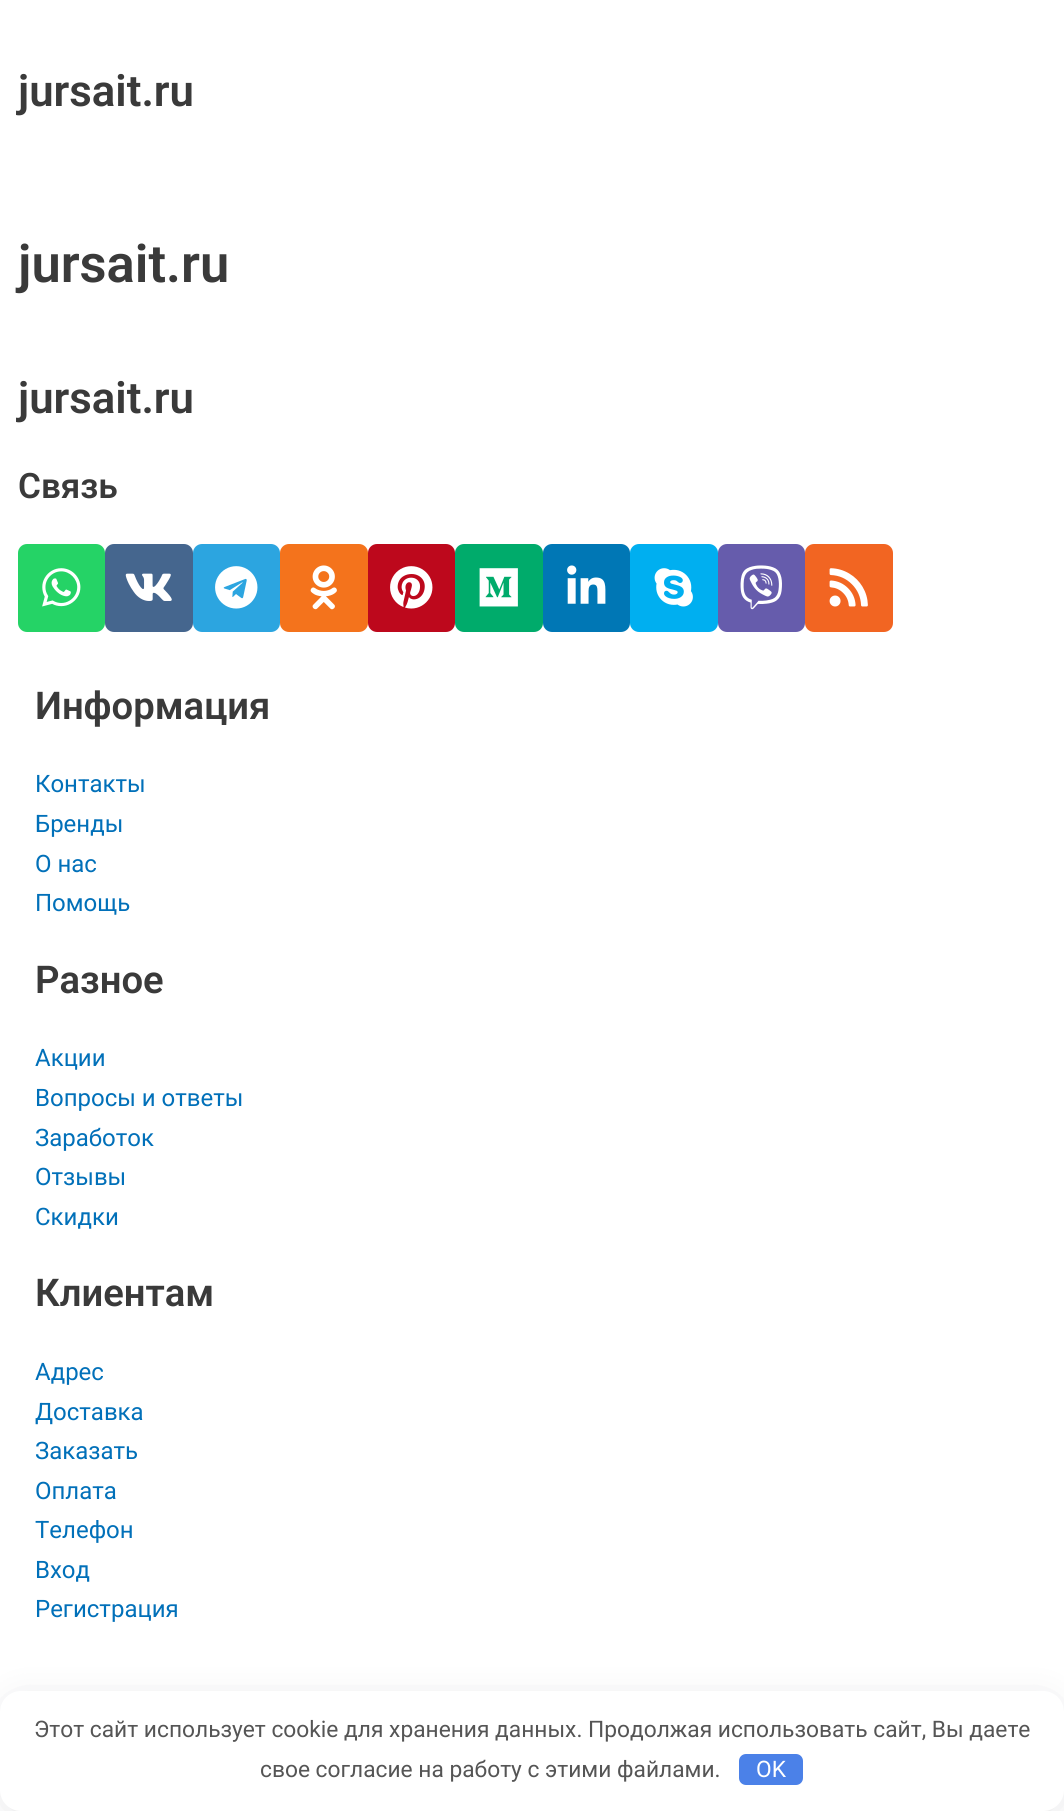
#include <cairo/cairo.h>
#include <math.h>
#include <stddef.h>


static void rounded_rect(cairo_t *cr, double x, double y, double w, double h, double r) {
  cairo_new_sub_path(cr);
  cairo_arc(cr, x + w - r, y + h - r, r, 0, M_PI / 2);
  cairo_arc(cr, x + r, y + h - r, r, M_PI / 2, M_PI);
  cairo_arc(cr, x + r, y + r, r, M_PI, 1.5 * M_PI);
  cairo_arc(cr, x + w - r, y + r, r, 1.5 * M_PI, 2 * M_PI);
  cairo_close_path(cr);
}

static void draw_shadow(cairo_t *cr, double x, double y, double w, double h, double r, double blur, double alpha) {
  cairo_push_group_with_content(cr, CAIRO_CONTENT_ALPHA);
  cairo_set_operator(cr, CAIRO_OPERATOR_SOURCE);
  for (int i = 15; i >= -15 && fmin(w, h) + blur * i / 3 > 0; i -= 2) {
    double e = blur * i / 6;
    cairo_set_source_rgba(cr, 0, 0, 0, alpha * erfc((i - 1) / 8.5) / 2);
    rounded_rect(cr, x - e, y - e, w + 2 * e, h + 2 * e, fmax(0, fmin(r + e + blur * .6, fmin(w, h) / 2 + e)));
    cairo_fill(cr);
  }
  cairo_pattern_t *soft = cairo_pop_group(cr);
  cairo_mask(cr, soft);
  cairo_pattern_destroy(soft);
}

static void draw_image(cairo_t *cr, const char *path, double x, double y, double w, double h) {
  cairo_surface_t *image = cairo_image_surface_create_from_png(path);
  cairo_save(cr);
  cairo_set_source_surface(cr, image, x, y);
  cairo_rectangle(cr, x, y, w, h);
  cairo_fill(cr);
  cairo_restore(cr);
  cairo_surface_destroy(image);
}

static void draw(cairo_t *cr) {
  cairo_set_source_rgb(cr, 1, 1, 1);
  cairo_paint(cr);
  cairo_set_source_rgb(cr, 37 / 255.0, 211 / 255.0, 102 / 255.0);
  rounded_rect(cr, 18, 544, 87, 88, 9);
  cairo_fill(cr);
  draw_image(cr, "images/1.png", 42, 568, 39, 39);
  cairo_set_source_rgb(cr, 69 / 255.0, 102 / 255.0, 142 / 255.0);
  rounded_rect(cr, 105, 544, 88, 88, 9);
  cairo_fill(cr);
  draw_image(cr, "images/2.png", 125, 573, 47, 28);
  cairo_set_source_rgb(cr, 44 / 255.0, 165 / 255.0, 224 / 255.0);
  rounded_rect(cr, 193, 544, 87, 88, 9);
  cairo_fill(cr);
  draw_image(cr, "images/3.png", 215, 566, 43, 43);
  cairo_set_source_rgb(cr, 244 / 255.0, 115 / 255.0, 28 / 255.0);
  rounded_rect(cr, 280, 544, 88, 88, 9);
  cairo_fill(cr);
  draw_image(cr, "images/4.png", 310, 565, 27, 45);
  cairo_set_source_rgb(cr, 189 / 255.0, 8 / 255.0, 28 / 255.0);
  rounded_rect(cr, 368, 544, 87, 88, 9);
  cairo_fill(cr);
  draw_image(cr, "images/5.png", 390, 566, 43, 43);
  cairo_set_source_rgb(cr, 0, 171 / 255.0, 107 / 255.0);
  rounded_rect(cr, 455, 544, 88, 88, 9);
  cairo_fill(cr);
  draw_image(cr, "images/6.png", 479, 568, 39, 39);
  cairo_set_source_rgb(cr, 0, 119 / 255.0, 181 / 255.0);
  rounded_rect(cr, 543, 544, 87, 88, 9);
  cairo_fill(cr);
  draw_image(cr, "images/7.png", 567, 565, 39, 39);
  cairo_set_source_rgb(cr, 0, 175 / 255.0, 240 / 255.0);
  rounded_rect(cr, 630, 544, 88, 88, 9);
  cairo_fill(cr);
  draw_image(cr, "images/8.png", 654, 568, 39, 39);
  cairo_set_source_rgb(cr, 102 / 255.0, 92 / 255.0, 172 / 255.0);
  rounded_rect(cr, 718, 544, 87, 88, 9);
  cairo_fill(cr);
  draw_image(cr, "images/9.png", 740, 565, 42, 45);
  cairo_set_source_rgb(cr, 242 / 255.0, 101 / 255.0, 34 / 255.0);
  rounded_rect(cr, 805, 544, 88, 88, 9);
  cairo_fill(cr);
  draw_image(cr, "images/10.png", 829, 568, 39, 39);
  cairo_set_source_rgb(cr, 41 / 255.0, 44 / 255.0, 56 / 255.0);
  draw_shadow(cr, 9, 1705, 1046, 103, 12, 17.5, 0.2);
  cairo_set_source_rgb(cr, 1, 1, 1);
  rounded_rect(cr, 0, 1691, 1064, 120, 21);
  cairo_fill(cr);
  cairo_set_source_rgb(cr, 75 / 255.0, 129 / 255.0, 232 / 255.0);
  rounded_rect(cr, 739, 1754, 64, 31, 7);
  cairo_fill(cr);
  cairo_select_font_face(cr, "Roboto SemiBold", CAIRO_FONT_SLANT_NORMAL, CAIRO_FONT_WEIGHT_NORMAL);
  cairo_set_font_size(cr, 43.75);
  cairo_set_source_rgb(cr, 58 / 255.0, 58 / 255.0, 58 / 255.0);
  cairo_move_to(cr, 18, 106);
  cairo_show_text(cr, "jursait.ru");
  cairo_set_font_size(cr, 52.5);
  cairo_move_to(cr, 18, 282);
  cairo_show_text(cr, "jursait.ru");
  cairo_set_font_size(cr, 43.75);
  cairo_move_to(cr, 18, 413);
  cairo_show_text(cr, "jursait.ru");
  cairo_set_font_size(cr, 35);
  cairo_move_to(cr, 18, 498);
  cairo_show_text(cr, "Связь");
  cairo_set_font_size(cr, 38.25);
  cairo_move_to(cr, 35, 719);
  cairo_show_text(cr, "Информация");
  cairo_select_font_face(cr, "Roboto", CAIRO_FONT_SLANT_NORMAL, CAIRO_FONT_WEIGHT_NORMAL);
  cairo_set_font_size(cr, 24);
  cairo_set_source_rgb(cr, 1 / 255.0, 112 / 255.0, 185 / 255.0);
  cairo_move_to(cr, 35, 792);
  cairo_show_text(cr, "Контакты");
  cairo_move_to(cr, 35, 832);
  cairo_show_text(cr, "Бренды");
  cairo_move_to(cr, 35, 872);
  cairo_show_text(cr, "О нас");
  cairo_move_to(cr, 35, 911);
  cairo_show_text(cr, "Помощь");
  cairo_select_font_face(cr, "Roboto SemiBold", CAIRO_FONT_SLANT_NORMAL, CAIRO_FONT_WEIGHT_NORMAL);
  cairo_set_font_size(cr, 38.25);
  cairo_set_source_rgb(cr, 58 / 255.0, 58 / 255.0, 58 / 255.0);
  cairo_move_to(cr, 35, 993);
  cairo_show_text(cr, "Разное");
  cairo_select_font_face(cr, "Roboto", CAIRO_FONT_SLANT_NORMAL, CAIRO_FONT_WEIGHT_NORMAL);
  cairo_set_font_size(cr, 24);
  cairo_set_source_rgb(cr, 1 / 255.0, 112 / 255.0, 185 / 255.0);
  cairo_move_to(cr, 35, 1066);
  cairo_show_text(cr, "Акции");
  cairo_move_to(cr, 35, 1106);
  cairo_show_text(cr, "Вопросы и ответы");
  cairo_move_to(cr, 35, 1146);
  cairo_show_text(cr, "Заработок");
  cairo_move_to(cr, 35, 1185);
  cairo_show_text(cr, "Отзывы");
  cairo_move_to(cr, 35, 1225);
  cairo_show_text(cr, "Скидки");
  cairo_select_font_face(cr, "Roboto SemiBold", CAIRO_FONT_SLANT_NORMAL, CAIRO_FONT_WEIGHT_NORMAL);
  cairo_set_font_size(cr, 38.25);
  cairo_set_source_rgb(cr, 58 / 255.0, 58 / 255.0, 58 / 255.0);
  cairo_move_to(cr, 35, 1306);
  cairo_show_text(cr, "Клиентам");
  cairo_select_font_face(cr, "Roboto", CAIRO_FONT_SLANT_NORMAL, CAIRO_FONT_WEIGHT_NORMAL);
  cairo_set_font_size(cr, 24);
  cairo_set_source_rgb(cr, 1 / 255.0, 112 / 255.0, 185 / 255.0);
  cairo_move_to(cr, 35, 1380);
  cairo_show_text(cr, "Адрес");
  cairo_move_to(cr, 35, 1420);
  cairo_show_text(cr, "Доставка");
  cairo_move_to(cr, 35, 1459);
  cairo_show_text(cr, "Заказать");
  cairo_move_to(cr, 35, 1499);
  cairo_show_text(cr, "Оплата");
  cairo_move_to(cr, 35, 1538);
  cairo_show_text(cr, "Телефон");
  cairo_move_to(cr, 35, 1578);
  cairo_show_text(cr, "Вход");
  cairo_move_to(cr, 35, 1617);
  cairo_show_text(cr, "Регистрация");
  cairo_set_font_size(cr, 22.75);
  cairo_set_source_rgb(cr, 85 / 255.0, 85 / 255.0, 85 / 255.0);
  cairo_move_to(cr, 34, 1737);
  cairo_show_text(cr, "Этот сайт использует cookie для хранения данных. Продолжая использовать сайт, Вы даете");
  cairo_move_to(cr, 260, 1777);
  cairo_show_text(cr, "свое согласие на работу с этими файлами.");
  cairo_set_source_rgb(cr, 1, 1, 1);
  cairo_move_to(cr, 756, 1777);
  cairo_show_text(cr, "OK");
}

int main(void) {
  cairo_surface_t *surface = cairo_image_surface_create(CAIRO_FORMAT_RGB24, 1064, 1811);
  cairo_t *cr = cairo_create(surface);
  cairo_font_options_t *options = cairo_font_options_create();
  cairo_font_options_set_hint_metrics(options, CAIRO_HINT_METRICS_OFF);
  cairo_font_options_set_hint_style(options, CAIRO_HINT_STYLE_NONE);
  cairo_set_font_options(cr, options);
  cairo_set_miter_limit(cr, 4);
  draw(cr);
  cairo_surface_write_to_png(surface, "out.png");
  cairo_font_options_destroy(options);
  cairo_destroy(cr);
  cairo_surface_destroy(surface);
  return 0;
}
